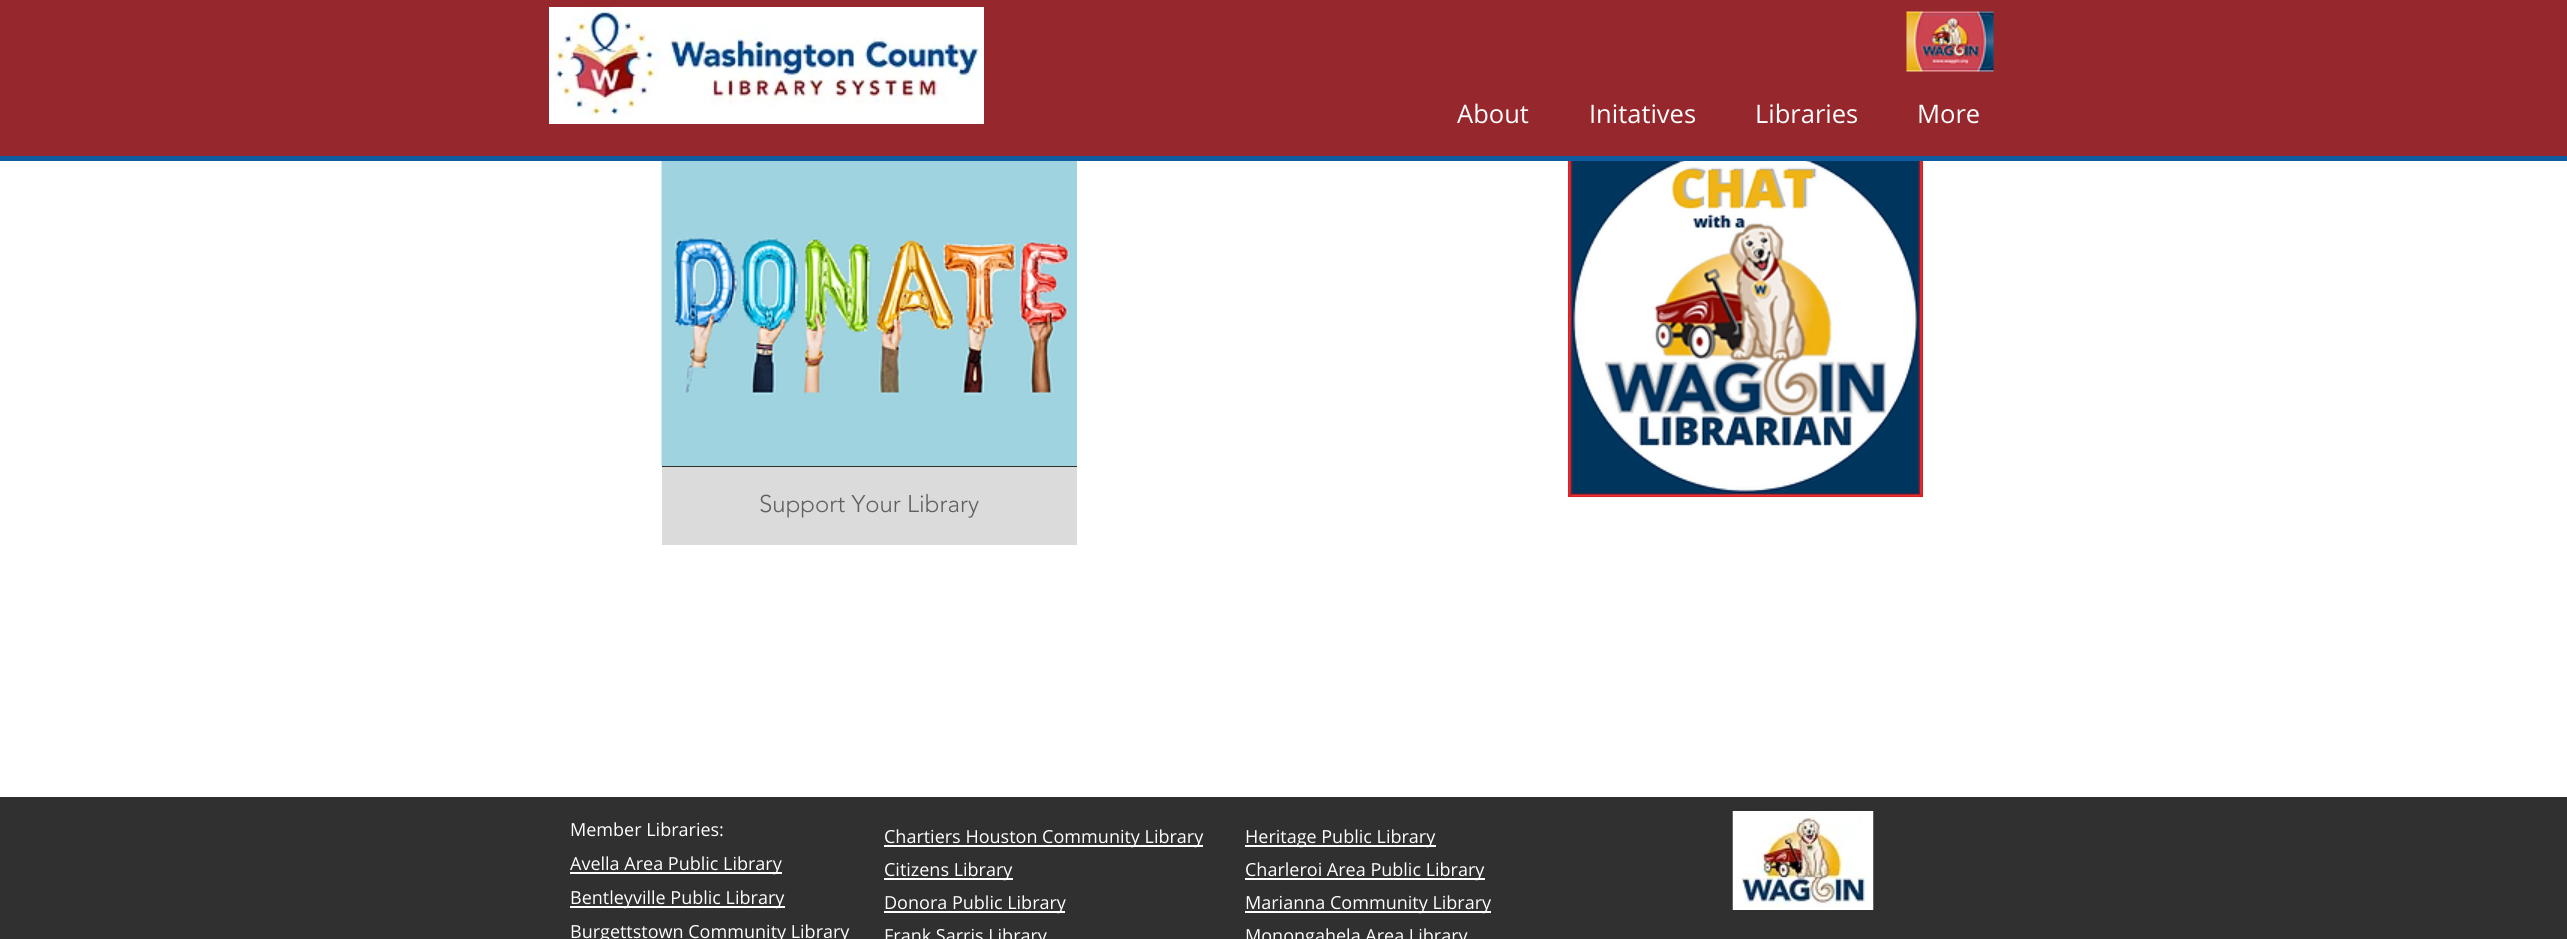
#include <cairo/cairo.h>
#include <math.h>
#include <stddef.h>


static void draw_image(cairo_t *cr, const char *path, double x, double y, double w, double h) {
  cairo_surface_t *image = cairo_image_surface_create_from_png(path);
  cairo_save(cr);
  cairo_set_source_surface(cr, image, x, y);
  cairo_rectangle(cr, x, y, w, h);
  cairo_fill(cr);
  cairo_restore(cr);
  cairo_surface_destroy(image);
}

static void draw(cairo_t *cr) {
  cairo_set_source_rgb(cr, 1, 1, 1);
  cairo_paint(cr);
  cairo_set_source_rgb(cr, 150 / 255.0, 39 / 255.0, 45 / 255.0);
  cairo_rectangle(cr, 0, 0, 2567, 156);
  cairo_fill(cr);
  cairo_set_source_rgb(cr, 15 / 255.0, 92 / 255.0, 160 / 255.0);
  cairo_rectangle(cr, 0, 156, 2567, 5);
  cairo_fill(cr);
  draw_image(cr, "images/1.png", 549, 7, 435, 117);
  draw_image(cr, "images/2.png", 1906, 11, 88, 61);
  draw_image(cr, "images/3.png", 1568, 161, 355, 337);
  cairo_set_source_rgb(cr, 47 / 255.0, 46 / 255.0, 46 / 255.0);
  cairo_rectangle(cr, 662, 466, 415, 1);
  cairo_fill(cr);
  draw_image(cr, "images/4.png", 661, 161, 416, 305);
  cairo_set_source_rgb(cr, 219 / 255.0, 219 / 255.0, 219 / 255.0);
  cairo_rectangle(cr, 662, 467, 415, 78);
  cairo_fill(cr);
  cairo_set_source_rgb(cr, 48 / 255.0, 48 / 255.0, 48 / 255.0);
  cairo_rectangle(cr, 0, 797, 2567, 142);
  cairo_fill(cr);
  cairo_set_source_rgb(cr, 1, 1, 1);
  cairo_rectangle(cr, 570, 872, 212, 2);
  cairo_fill(cr);
  cairo_rectangle(cr, 570, 906, 215, 2);
  cairo_fill(cr);
  cairo_rectangle(cr, 884, 845, 319, 2);
  cairo_fill(cr);
  cairo_rectangle(cr, 884, 878, 129, 2);
  cairo_fill(cr);
  cairo_rectangle(cr, 884, 911, 181, 2);
  cairo_fill(cr);
  cairo_rectangle(cr, 1245, 845, 191, 2);
  cairo_fill(cr);
  cairo_rectangle(cr, 1245, 878, 240, 2);
  cairo_fill(cr);
  cairo_rectangle(cr, 1245, 911, 246, 2);
  cairo_fill(cr);
  draw_image(cr, "images/5.png", 1732, 811, 142, 99);
  cairo_select_font_face(cr, "Open Sans", CAIRO_FONT_SLANT_NORMAL, CAIRO_FONT_WEIGHT_NORMAL);
  cairo_set_font_size(cr, 25.5);
  cairo_move_to(cr, 1457, 123);
  cairo_show_text(cr, "About");
  cairo_move_to(cr, 1589, 123);
  cairo_show_text(cr, "Initatives");
  cairo_move_to(cr, 1755, 123);
  cairo_show_text(cr, "Libraries");
  cairo_move_to(cr, 1917, 123);
  cairo_show_text(cr, "More");
  cairo_select_font_face(cr, "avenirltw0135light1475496 Light", CAIRO_FONT_SLANT_NORMAL, CAIRO_FONT_WEIGHT_NORMAL);
  cairo_set_font_size(cr, 24);
  cairo_set_source_rgb(cr, 96 / 255.0, 96 / 255.0, 96 / 255.0);
  cairo_move_to(cr, 759, 512);
  cairo_show_text(cr, "Support Your Library");
  cairo_select_font_face(cr, "Open Sans", CAIRO_FONT_SLANT_NORMAL, CAIRO_FONT_WEIGHT_NORMAL);
  cairo_set_font_size(cr, 18);
  cairo_set_source_rgb(cr, 1, 1, 1);
  cairo_move_to(cr, 570, 836);
  cairo_show_text(cr, "Member Libraries:");
  cairo_move_to(cr, 570, 870);
  cairo_show_text(cr, "Avella Area Public Library");
  cairo_move_to(cr, 570, 904);
  cairo_show_text(cr, "Bentleyville Public Library");
  cairo_move_to(cr, 570, 938);
  cairo_show_text(cr, "Burgettstown Community Library");
  cairo_move_to(cr, 884, 843);
  cairo_show_text(cr, "Chartiers Houston Community Library");
  cairo_move_to(cr, 884, 876);
  cairo_show_text(cr, "Citizens Library");
  cairo_move_to(cr, 884, 909);
  cairo_show_text(cr, "Donora Public Library");
  cairo_move_to(cr, 884, 942);
  cairo_show_text(cr, "Frank Sarris Library");
  cairo_move_to(cr, 1245, 843);
  cairo_show_text(cr, "Heritage Public Library");
  cairo_move_to(cr, 1245, 876);
  cairo_show_text(cr, "Charleroi Area Public Library");
  cairo_move_to(cr, 1245, 909);
  cairo_show_text(cr, "Marianna Community Library");
  cairo_move_to(cr, 1245, 942);
  cairo_show_text(cr, "Monongahela Area Library");
}

int main(void) {
  cairo_surface_t *surface = cairo_image_surface_create(CAIRO_FORMAT_RGB24, 2567, 939);
  cairo_t *cr = cairo_create(surface);
  cairo_font_options_t *options = cairo_font_options_create();
  cairo_font_options_set_hint_metrics(options, CAIRO_HINT_METRICS_OFF);
  cairo_font_options_set_hint_style(options, CAIRO_HINT_STYLE_NONE);
  cairo_set_font_options(cr, options);
  cairo_set_miter_limit(cr, 4);
  draw(cr);
  cairo_surface_write_to_png(surface, "out.png");
  cairo_font_options_destroy(options);
  cairo_destroy(cr);
  cairo_surface_destroy(surface);
  return 0;
}
